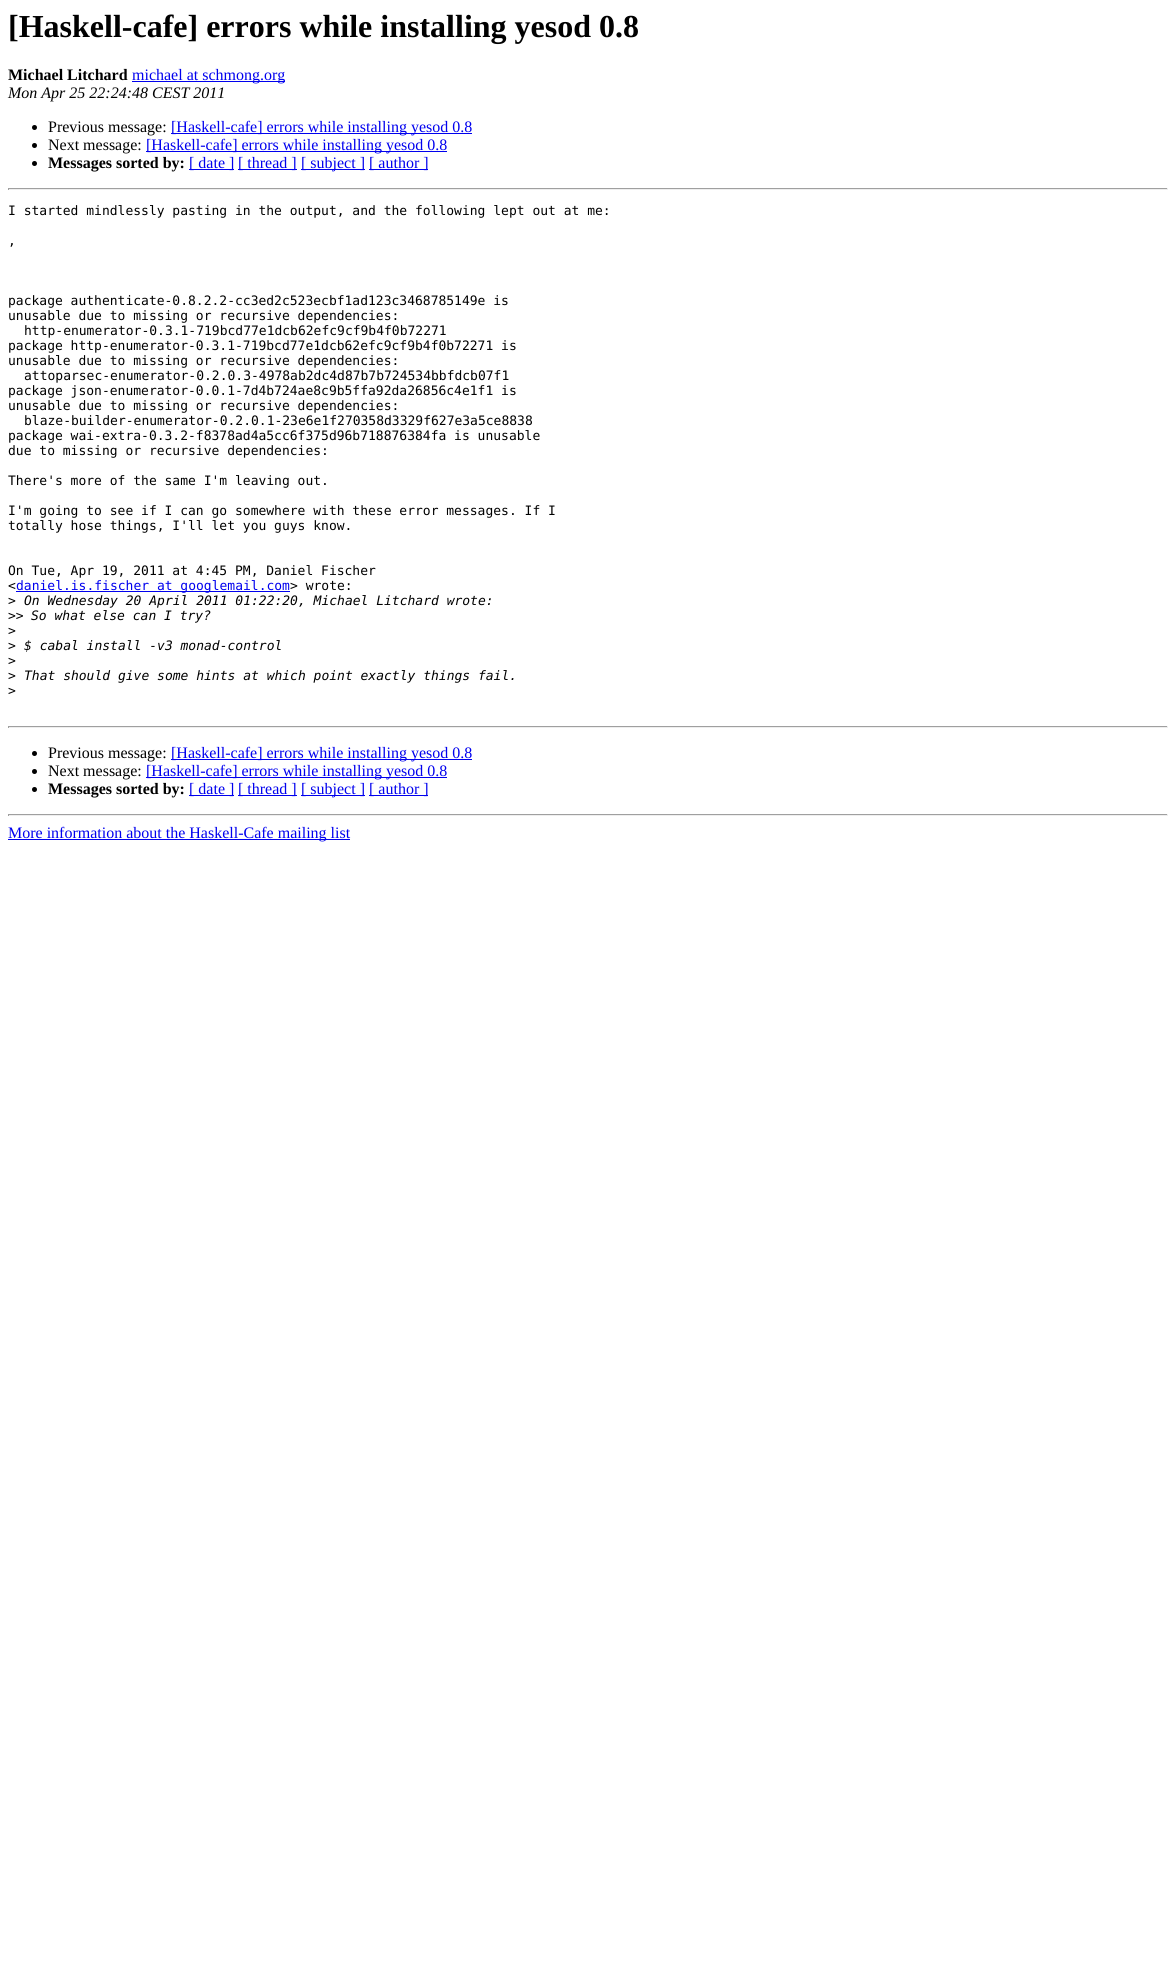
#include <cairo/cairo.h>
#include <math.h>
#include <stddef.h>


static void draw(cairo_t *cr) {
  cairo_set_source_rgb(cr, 1, 1, 1);
  cairo_paint(cr);
  cairo_set_source_rgb(cr, 0, 0, 238 / 255.0);
  cairo_rectangle(cr, 132, 81, 153, 1);
  cairo_fill(cr);
  cairo_set_source_rgb(cr, 0, 0, 0);
  cairo_arc(cr, 34.5, 127.5, 2.5, 0, 2 * M_PI);
  cairo_fill(cr);
  cairo_set_source_rgb(cr, 0, 0, 238 / 255.0);
  cairo_rectangle(cr, 171, 133, 301, 1);
  cairo_fill(cr);
  cairo_set_source_rgb(cr, 0, 0, 0);
  cairo_arc(cr, 34.5, 145.5, 2.5, 0, 2 * M_PI);
  cairo_fill(cr);
  cairo_set_source_rgb(cr, 0, 0, 238 / 255.0);
  cairo_rectangle(cr, 146, 151, 301, 1);
  cairo_fill(cr);
  cairo_set_source_rgb(cr, 0, 0, 0);
  cairo_arc(cr, 34.5, 163.5, 2.5, 0, 2 * M_PI);
  cairo_fill(cr);
  cairo_set_source_rgb(cr, 0, 0, 238 / 255.0);
  cairo_rectangle(cr, 189, 169, 45, 1);
  cairo_fill(cr);
  cairo_rectangle(cr, 238, 169, 59, 1);
  cairo_fill(cr);
  cairo_rectangle(cr, 301, 169, 64, 1);
  cairo_fill(cr);
  cairo_rectangle(cr, 369, 169, 59, 1);
  cairo_fill(cr);
  cairo_set_source_rgb(cr, 159 / 255.0, 159 / 255.0, 159 / 255.0);
  cairo_rectangle(cr, 8, 188, 1160, 1);
  cairo_fill(cr);
  cairo_set_source_rgb(cr, 238 / 255.0, 238 / 255.0, 238 / 255.0);
  cairo_rectangle(cr, 1167, 188, 1, 2);
  cairo_fill(cr);
  cairo_rectangle(cr, 8, 189, 1160, 1);
  cairo_fill(cr);
  cairo_set_source_rgb(cr, 159 / 255.0, 159 / 255.0, 159 / 255.0);
  cairo_rectangle(cr, 8, 188, 1, 2);
  cairo_fill(cr);
  cairo_set_source_rgb(cr, 0, 0, 238 / 255.0);
  cairo_rectangle(cr, 16, 591, 274, 1);
  cairo_fill(cr);
  cairo_set_source_rgb(cr, 159 / 255.0, 159 / 255.0, 159 / 255.0);
  cairo_rectangle(cr, 8, 726, 1160, 1);
  cairo_fill(cr);
  cairo_set_source_rgb(cr, 238 / 255.0, 238 / 255.0, 238 / 255.0);
  cairo_rectangle(cr, 1167, 726, 1, 2);
  cairo_fill(cr);
  cairo_rectangle(cr, 8, 727, 1160, 1);
  cairo_fill(cr);
  cairo_set_source_rgb(cr, 159 / 255.0, 159 / 255.0, 159 / 255.0);
  cairo_rectangle(cr, 8, 726, 1, 2);
  cairo_fill(cr);
  cairo_set_source_rgb(cr, 0, 0, 0);
  cairo_arc(cr, 34.5, 753.5, 2.5, 0, 2 * M_PI);
  cairo_fill(cr);
  cairo_set_source_rgb(cr, 0, 0, 238 / 255.0);
  cairo_rectangle(cr, 171, 759, 301, 1);
  cairo_fill(cr);
  cairo_set_source_rgb(cr, 0, 0, 0);
  cairo_arc(cr, 34.5, 771.5, 2.5, 0, 2 * M_PI);
  cairo_fill(cr);
  cairo_set_source_rgb(cr, 0, 0, 238 / 255.0);
  cairo_rectangle(cr, 146, 777, 301, 1);
  cairo_fill(cr);
  cairo_set_source_rgb(cr, 0, 0, 0);
  cairo_arc(cr, 34.5, 789.5, 2.5, 0, 2 * M_PI);
  cairo_fill(cr);
  cairo_set_source_rgb(cr, 0, 0, 238 / 255.0);
  cairo_rectangle(cr, 189, 795, 45, 1);
  cairo_fill(cr);
  cairo_rectangle(cr, 238, 795, 59, 1);
  cairo_fill(cr);
  cairo_rectangle(cr, 301, 795, 64, 1);
  cairo_fill(cr);
  cairo_rectangle(cr, 369, 795, 59, 1);
  cairo_fill(cr);
  cairo_set_source_rgb(cr, 159 / 255.0, 159 / 255.0, 159 / 255.0);
  cairo_rectangle(cr, 8, 814, 1160, 1);
  cairo_fill(cr);
  cairo_set_source_rgb(cr, 238 / 255.0, 238 / 255.0, 238 / 255.0);
  cairo_rectangle(cr, 1167, 814, 1, 2);
  cairo_fill(cr);
  cairo_rectangle(cr, 8, 815, 1160, 1);
  cairo_fill(cr);
  cairo_set_source_rgb(cr, 159 / 255.0, 159 / 255.0, 159 / 255.0);
  cairo_rectangle(cr, 8, 814, 1, 2);
  cairo_fill(cr);
  cairo_set_source_rgb(cr, 0, 0, 238 / 255.0);
  cairo_rectangle(cr, 8, 839, 342, 1);
  cairo_fill(cr);
  cairo_select_font_face(cr, "Liberation Serif", CAIRO_FONT_SLANT_NORMAL, CAIRO_FONT_WEIGHT_BOLD);
  cairo_set_font_size(cr, 32);
  cairo_set_source_rgb(cr, 0, 0, 0);
  cairo_move_to(cr, 8, 37);
  cairo_show_text(cr, "[Haskell-cafe] errors while installing yesod 0.8");
  cairo_set_font_size(cr, 16);
  cairo_move_to(cr, 8, 80);
  cairo_show_text(cr, "Michael Litchard");
  cairo_select_font_face(cr, "Liberation Serif", CAIRO_FONT_SLANT_NORMAL, CAIRO_FONT_WEIGHT_NORMAL);
  cairo_set_source_rgb(cr, 0, 0, 238 / 255.0);
  cairo_move_to(cr, 132, 80);
  cairo_show_text(cr, "michael at schmong.org");
  cairo_select_font_face(cr, "Liberation Serif", CAIRO_FONT_SLANT_ITALIC, CAIRO_FONT_WEIGHT_NORMAL);
  cairo_set_source_rgb(cr, 0, 0, 0);
  cairo_move_to(cr, 8, 98);
  cairo_show_text(cr, "Mon Apr 25 22:24:48 CEST 2011");
  cairo_select_font_face(cr, "Liberation Serif", CAIRO_FONT_SLANT_NORMAL, CAIRO_FONT_WEIGHT_NORMAL);
  cairo_move_to(cr, 48, 132);
  cairo_show_text(cr, "Previous message:");
  cairo_set_source_rgb(cr, 0, 0, 238 / 255.0);
  cairo_move_to(cr, 171, 132);
  cairo_show_text(cr, "[Haskell-cafe] errors while installing yesod 0.8");
  cairo_set_source_rgb(cr, 0, 0, 0);
  cairo_move_to(cr, 48, 150);
  cairo_show_text(cr, "Next message:");
  cairo_set_source_rgb(cr, 0, 0, 238 / 255.0);
  cairo_move_to(cr, 146, 150);
  cairo_show_text(cr, "[Haskell-cafe] errors while installing yesod 0.8");
  cairo_select_font_face(cr, "Liberation Serif", CAIRO_FONT_SLANT_NORMAL, CAIRO_FONT_WEIGHT_BOLD);
  cairo_set_source_rgb(cr, 0, 0, 0);
  cairo_move_to(cr, 48, 168);
  cairo_show_text(cr, "Messages sorted by:");
  cairo_select_font_face(cr, "Liberation Serif", CAIRO_FONT_SLANT_NORMAL, CAIRO_FONT_WEIGHT_NORMAL);
  cairo_set_source_rgb(cr, 0, 0, 238 / 255.0);
  cairo_move_to(cr, 189, 168);
  cairo_show_text(cr, "[ date ]");
  cairo_move_to(cr, 238, 168);
  cairo_show_text(cr, "[ thread ]");
  cairo_move_to(cr, 301, 168);
  cairo_show_text(cr, "[ subject ]");
  cairo_move_to(cr, 369, 168);
  cairo_show_text(cr, "[ author ]");
  cairo_select_font_face(cr, "DejaVu Sans Mono", CAIRO_FONT_SLANT_NORMAL, CAIRO_FONT_WEIGHT_NORMAL);
  cairo_set_font_size(cr, 13);
  cairo_set_source_rgb(cr, 0, 0, 0);
  cairo_move_to(cr, 8, 215);
  cairo_show_text(cr, "I started mindlessly pasting in the output, and the following lept out at me:");
  cairo_move_to(cr, 8, 245);
  cairo_show_text(cr, ",");
  cairo_move_to(cr, 8, 305);
  cairo_show_text(cr, "package authenticate-0.8.2.2-cc3ed2c523ecbf1ad123c3468785149e is");
  cairo_move_to(cr, 8, 320);
  cairo_show_text(cr, "unusable due to missing or recursive dependencies:");
  cairo_move_to(cr, 24, 335);
  cairo_show_text(cr, "http-enumerator-0.3.1-719bcd77e1dcb62efc9cf9b4f0b72271");
  cairo_move_to(cr, 8, 350);
  cairo_show_text(cr, "package http-enumerator-0.3.1-719bcd77e1dcb62efc9cf9b4f0b72271 is");
  cairo_move_to(cr, 8, 365);
  cairo_show_text(cr, "unusable due to missing or recursive dependencies:");
  cairo_move_to(cr, 24, 380);
  cairo_show_text(cr, "attoparsec-enumerator-0.2.0.3-4978ab2dc4d87b7b724534bbfdcb07f1");
  cairo_move_to(cr, 8, 395);
  cairo_show_text(cr, "package json-enumerator-0.0.1-7d4b724ae8c9b5ffa92da26856c4e1f1 is");
  cairo_move_to(cr, 8, 410);
  cairo_show_text(cr, "unusable due to missing or recursive dependencies:");
  cairo_move_to(cr, 24, 425);
  cairo_show_text(cr, "blaze-builder-enumerator-0.2.0.1-23e6e1f270358d3329f627e3a5ce8838");
  cairo_move_to(cr, 8, 440);
  cairo_show_text(cr, "package wai-extra-0.3.2-f8378ad4a5cc6f375d96b718876384fa is unusable");
  cairo_move_to(cr, 8, 455);
  cairo_show_text(cr, "due to missing or recursive dependencies:");
  cairo_move_to(cr, 8, 485);
  cairo_show_text(cr, "There's more of the same I'm leaving out.");
  cairo_move_to(cr, 8, 515);
  cairo_show_text(cr, "I'm going to see if I can go somewhere with these error messages. If I");
  cairo_move_to(cr, 8, 530);
  cairo_show_text(cr, "totally hose things, I'll let you guys know.");
  cairo_move_to(cr, 8, 575);
  cairo_show_text(cr, "On Tue, Apr 19, 2011 at 4:45 PM, Daniel Fischer");
  cairo_move_to(cr, 8, 590);
  cairo_show_text(cr, "<");
  cairo_set_source_rgb(cr, 0, 0, 238 / 255.0);
  cairo_move_to(cr, 16, 590);
  cairo_show_text(cr, "daniel.is.fischer at googlemail.com");
  cairo_set_source_rgb(cr, 0, 0, 0);
  cairo_move_to(cr, 290, 590);
  cairo_show_text(cr, "> wrote:");
  cairo_move_to(cr, 8, 605);
  cairo_show_text(cr, ">");
  cairo_select_font_face(cr, "DejaVu Sans Mono", CAIRO_FONT_SLANT_ITALIC, CAIRO_FONT_WEIGHT_NORMAL);
  cairo_move_to(cr, 24, 605);
  cairo_show_text(cr, "On Wednesday 20 April 2011 01:22:20, Michael Litchard wrote:");
  cairo_select_font_face(cr, "DejaVu Sans Mono", CAIRO_FONT_SLANT_NORMAL, CAIRO_FONT_WEIGHT_NORMAL);
  cairo_move_to(cr, 8, 620);
  cairo_show_text(cr, ">>");
  cairo_select_font_face(cr, "DejaVu Sans Mono", CAIRO_FONT_SLANT_ITALIC, CAIRO_FONT_WEIGHT_NORMAL);
  cairo_move_to(cr, 31, 620);
  cairo_show_text(cr, "So what else can I try?");
  cairo_select_font_face(cr, "DejaVu Sans Mono", CAIRO_FONT_SLANT_NORMAL, CAIRO_FONT_WEIGHT_NORMAL);
  cairo_move_to(cr, 8, 635);
  cairo_show_text(cr, ">");
  cairo_move_to(cr, 8, 650);
  cairo_show_text(cr, ">");
  cairo_select_font_face(cr, "DejaVu Sans Mono", CAIRO_FONT_SLANT_ITALIC, CAIRO_FONT_WEIGHT_NORMAL);
  cairo_move_to(cr, 24, 650);
  cairo_show_text(cr, "$ cabal install -v3 monad-control");
  cairo_select_font_face(cr, "DejaVu Sans Mono", CAIRO_FONT_SLANT_NORMAL, CAIRO_FONT_WEIGHT_NORMAL);
  cairo_move_to(cr, 8, 665);
  cairo_show_text(cr, ">");
  cairo_move_to(cr, 8, 680);
  cairo_show_text(cr, ">");
  cairo_select_font_face(cr, "DejaVu Sans Mono", CAIRO_FONT_SLANT_ITALIC, CAIRO_FONT_WEIGHT_NORMAL);
  cairo_move_to(cr, 24, 680);
  cairo_show_text(cr, "That should give some hints at which point exactly things fail.");
  cairo_select_font_face(cr, "DejaVu Sans Mono", CAIRO_FONT_SLANT_NORMAL, CAIRO_FONT_WEIGHT_NORMAL);
  cairo_move_to(cr, 8, 695);
  cairo_show_text(cr, ">");
  cairo_select_font_face(cr, "Liberation Serif", CAIRO_FONT_SLANT_NORMAL, CAIRO_FONT_WEIGHT_NORMAL);
  cairo_set_font_size(cr, 16);
  cairo_move_to(cr, 48, 758);
  cairo_show_text(cr, "Previous message:");
  cairo_set_source_rgb(cr, 0, 0, 238 / 255.0);
  cairo_move_to(cr, 171, 758);
  cairo_show_text(cr, "[Haskell-cafe] errors while installing yesod 0.8");
  cairo_set_source_rgb(cr, 0, 0, 0);
  cairo_move_to(cr, 48, 776);
  cairo_show_text(cr, "Next message:");
  cairo_set_source_rgb(cr, 0, 0, 238 / 255.0);
  cairo_move_to(cr, 146, 776);
  cairo_show_text(cr, "[Haskell-cafe] errors while installing yesod 0.8");
  cairo_select_font_face(cr, "Liberation Serif", CAIRO_FONT_SLANT_NORMAL, CAIRO_FONT_WEIGHT_BOLD);
  cairo_set_source_rgb(cr, 0, 0, 0);
  cairo_move_to(cr, 48, 794);
  cairo_show_text(cr, "Messages sorted by:");
  cairo_select_font_face(cr, "Liberation Serif", CAIRO_FONT_SLANT_NORMAL, CAIRO_FONT_WEIGHT_NORMAL);
  cairo_set_source_rgb(cr, 0, 0, 238 / 255.0);
  cairo_move_to(cr, 189, 794);
  cairo_show_text(cr, "[ date ]");
  cairo_move_to(cr, 238, 794);
  cairo_show_text(cr, "[ thread ]");
  cairo_move_to(cr, 301, 794);
  cairo_show_text(cr, "[ subject ]");
  cairo_move_to(cr, 369, 794);
  cairo_show_text(cr, "[ author ]");
  cairo_move_to(cr, 8, 838);
  cairo_show_text(cr, "More information about the Haskell-Cafe mailing list");
}

int main(void) {
  cairo_surface_t *surface = cairo_image_surface_create(CAIRO_FORMAT_RGB24, 1176, 1988);
  cairo_t *cr = cairo_create(surface);
  cairo_font_options_t *options = cairo_font_options_create();
  cairo_font_options_set_hint_metrics(options, CAIRO_HINT_METRICS_OFF);
  cairo_font_options_set_hint_style(options, CAIRO_HINT_STYLE_NONE);
  cairo_set_font_options(cr, options);
  cairo_set_miter_limit(cr, 4);
  draw(cr);
  cairo_surface_write_to_png(surface, "out.png");
  cairo_font_options_destroy(options);
  cairo_destroy(cr);
  cairo_surface_destroy(surface);
  return 0;
}
